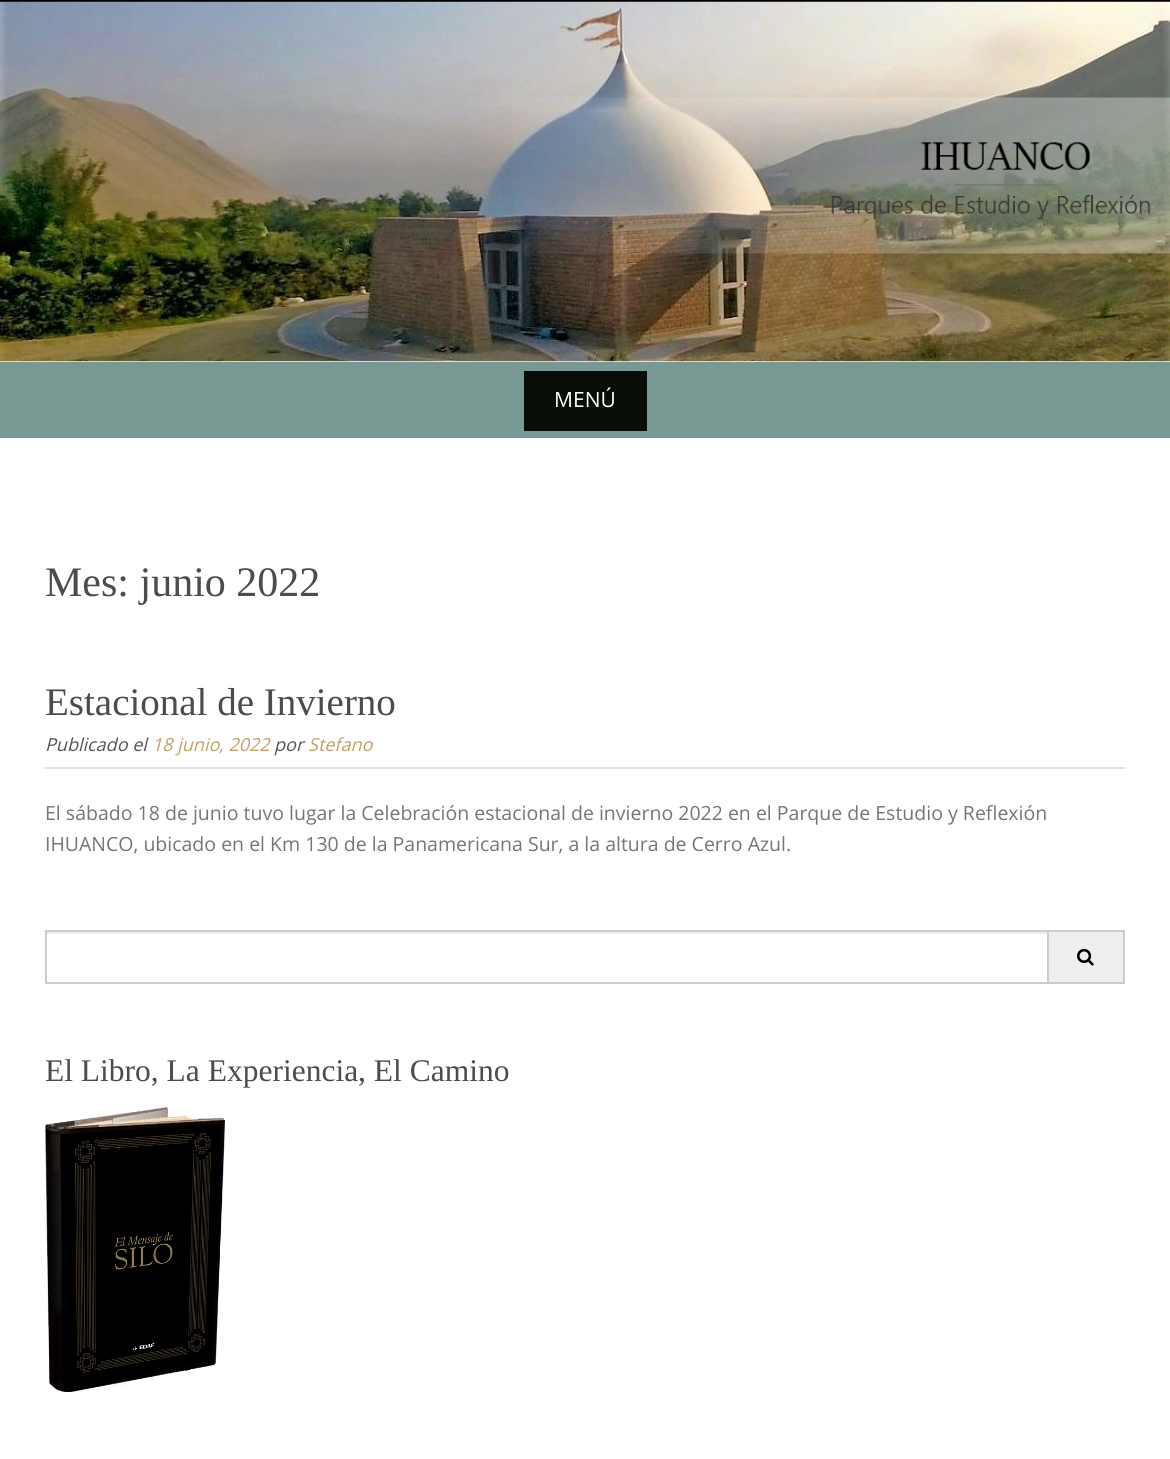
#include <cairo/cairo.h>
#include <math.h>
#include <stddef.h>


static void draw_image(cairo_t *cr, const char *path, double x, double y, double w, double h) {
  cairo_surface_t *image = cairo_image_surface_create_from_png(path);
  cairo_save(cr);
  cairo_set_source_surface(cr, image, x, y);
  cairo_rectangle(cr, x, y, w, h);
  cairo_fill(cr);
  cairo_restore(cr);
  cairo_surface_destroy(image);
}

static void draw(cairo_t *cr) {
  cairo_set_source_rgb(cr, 0, 0, 0);
  cairo_paint(cr);
  cairo_set_source_rgb(cr, 1, 1, 1);
  cairo_rectangle(cr, 0, 361, 1170, 1);
  cairo_fill(cr);
  draw_image(cr, "images/1.png", 0, 1, 1170, 361);
  draw_image(cr, "images/2.png", 513, 97, 657, 157);
  cairo_set_source_rgb(cr, 120 / 255.0, 153 / 255.0, 147 / 255.0);
  cairo_rectangle(cr, 0, 362, 1170, 76);
  cairo_fill(cr);
  cairo_set_source_rgb(cr, 8 / 255.0, 13 / 255.0, 7 / 255.0);
  cairo_rectangle(cr, 524, 371, 123, 60);
  cairo_fill(cr);
  cairo_set_source_rgb(cr, 1, 1, 1);
  cairo_rectangle(cr, 0, 438, 1170, 1021);
  cairo_fill(cr);
  cairo_set_source_rgb(cr, 224 / 255.0, 224 / 255.0, 224 / 255.0);
  cairo_rectangle(cr, 45, 767, 1080, 2);
  cairo_fill(cr);
  cairo_set_source_rgb(cr, 238 / 255.0, 238 / 255.0, 238 / 255.0);
  cairo_rectangle(cr, 1049, 932, 74, 50);
  cairo_fill(cr);
  cairo_rectangle(cr, 1047, 931, 77, 52);
  cairo_set_source_rgb(cr, 204 / 255.0, 204 / 255.0, 204 / 255.0);
  cairo_stroke(cr);
  cairo_set_source_rgb(cr, 1, 1, 1);
  cairo_rectangle(cr, 1046, 934, 1, 48);
  cairo_fill(cr);
  cairo_set_source_rgb(cr, 236 / 255.0, 236 / 255.0, 236 / 255.0);
  cairo_rectangle(cr, 47, 932, 1000, 2);
  cairo_fill(cr);
  cairo_rectangle(cr, 46, 931, 1002, 52);
  cairo_set_source_rgb(cr, 204 / 255.0, 204 / 255.0, 204 / 255.0);
  cairo_stroke(cr);
  draw_image(cr, "images/3.png", 1077, 948, 17, 18);
  draw_image(cr, "images/4.png", 45, 1107, 180, 285);
  cairo_select_font_face(cr, "Open Sans", CAIRO_FONT_SLANT_NORMAL, CAIRO_FONT_WEIGHT_NORMAL);
  cairo_set_font_size(cr, 21);
  cairo_set_source_rgb(cr, 1, 1, 1);
  cairo_move_to(cr, 554, 407);
  cairo_show_text(cr, "MENÚ");
  cairo_select_font_face(cr, "Liberation Serif", CAIRO_FONT_SLANT_NORMAL, CAIRO_FONT_WEIGHT_NORMAL);
  cairo_set_font_size(cr, 42);
  cairo_set_source_rgb(cr, 76 / 255.0, 76 / 255.0, 76 / 255.0);
  cairo_move_to(cr, 45, 596);
  cairo_show_text(cr, "Mes: junio 2022");
  cairo_set_font_size(cr, 39);
  cairo_move_to(cr, 45, 715);
  cairo_show_text(cr, "Estacional de Invierno");
  cairo_select_font_face(cr, "Open Sans", CAIRO_FONT_SLANT_ITALIC, CAIRO_FONT_WEIGHT_NORMAL);
  cairo_set_font_size(cr, 18);
  cairo_set_source_rgb(cr, 84 / 255.0, 84 / 255.0, 84 / 255.0);
  cairo_move_to(cr, 45, 751);
  cairo_show_text(cr, "Publicado el");
  cairo_set_source_rgb(cr, 198 / 255.0, 159 / 255.0, 99 / 255.0);
  cairo_move_to(cr, 152, 751);
  cairo_show_text(cr, "18 junio, 2022");
  cairo_set_source_rgb(cr, 84 / 255.0, 84 / 255.0, 84 / 255.0);
  cairo_move_to(cr, 274, 751);
  cairo_show_text(cr, "por");
  cairo_set_source_rgb(cr, 198 / 255.0, 159 / 255.0, 99 / 255.0);
  cairo_move_to(cr, 308, 751);
  cairo_show_text(cr, "Stefano");
  cairo_select_font_face(cr, "Open Sans", CAIRO_FONT_SLANT_NORMAL, CAIRO_FONT_WEIGHT_NORMAL);
  cairo_set_font_size(cr, 19.5);
  cairo_set_source_rgb(cr, 118 / 255.0, 118 / 255.0, 118 / 255.0);
  cairo_move_to(cr, 45, 820);
  cairo_show_text(cr, "El sábado 18 de junio tuvo lugar la Celebración estacional de invierno 2022 en el Parque de Estudio y Reflexión");
  cairo_move_to(cr, 45, 851);
  cairo_show_text(cr, "IHUANCO, ubicado en el Km 130 de la Panamericana Sur, a la altura de Cerro Azul.");
  cairo_select_font_face(cr, "Liberation Serif", CAIRO_FONT_SLANT_NORMAL, CAIRO_FONT_WEIGHT_NORMAL);
  cairo_set_font_size(cr, 31.5);
  cairo_set_source_rgb(cr, 76 / 255.0, 76 / 255.0, 76 / 255.0);
  cairo_move_to(cr, 45, 1081);
  cairo_show_text(cr, "El Libro, La Experiencia, El Camino");
}

int main(void) {
  cairo_surface_t *surface = cairo_image_surface_create(CAIRO_FORMAT_RGB24, 1170, 1459);
  cairo_t *cr = cairo_create(surface);
  cairo_font_options_t *options = cairo_font_options_create();
  cairo_font_options_set_hint_metrics(options, CAIRO_HINT_METRICS_OFF);
  cairo_font_options_set_hint_style(options, CAIRO_HINT_STYLE_NONE);
  cairo_set_font_options(cr, options);
  cairo_set_miter_limit(cr, 4);
  draw(cr);
  cairo_surface_write_to_png(surface, "out.png");
  cairo_font_options_destroy(options);
  cairo_destroy(cr);
  cairo_surface_destroy(surface);
  return 0;
}
